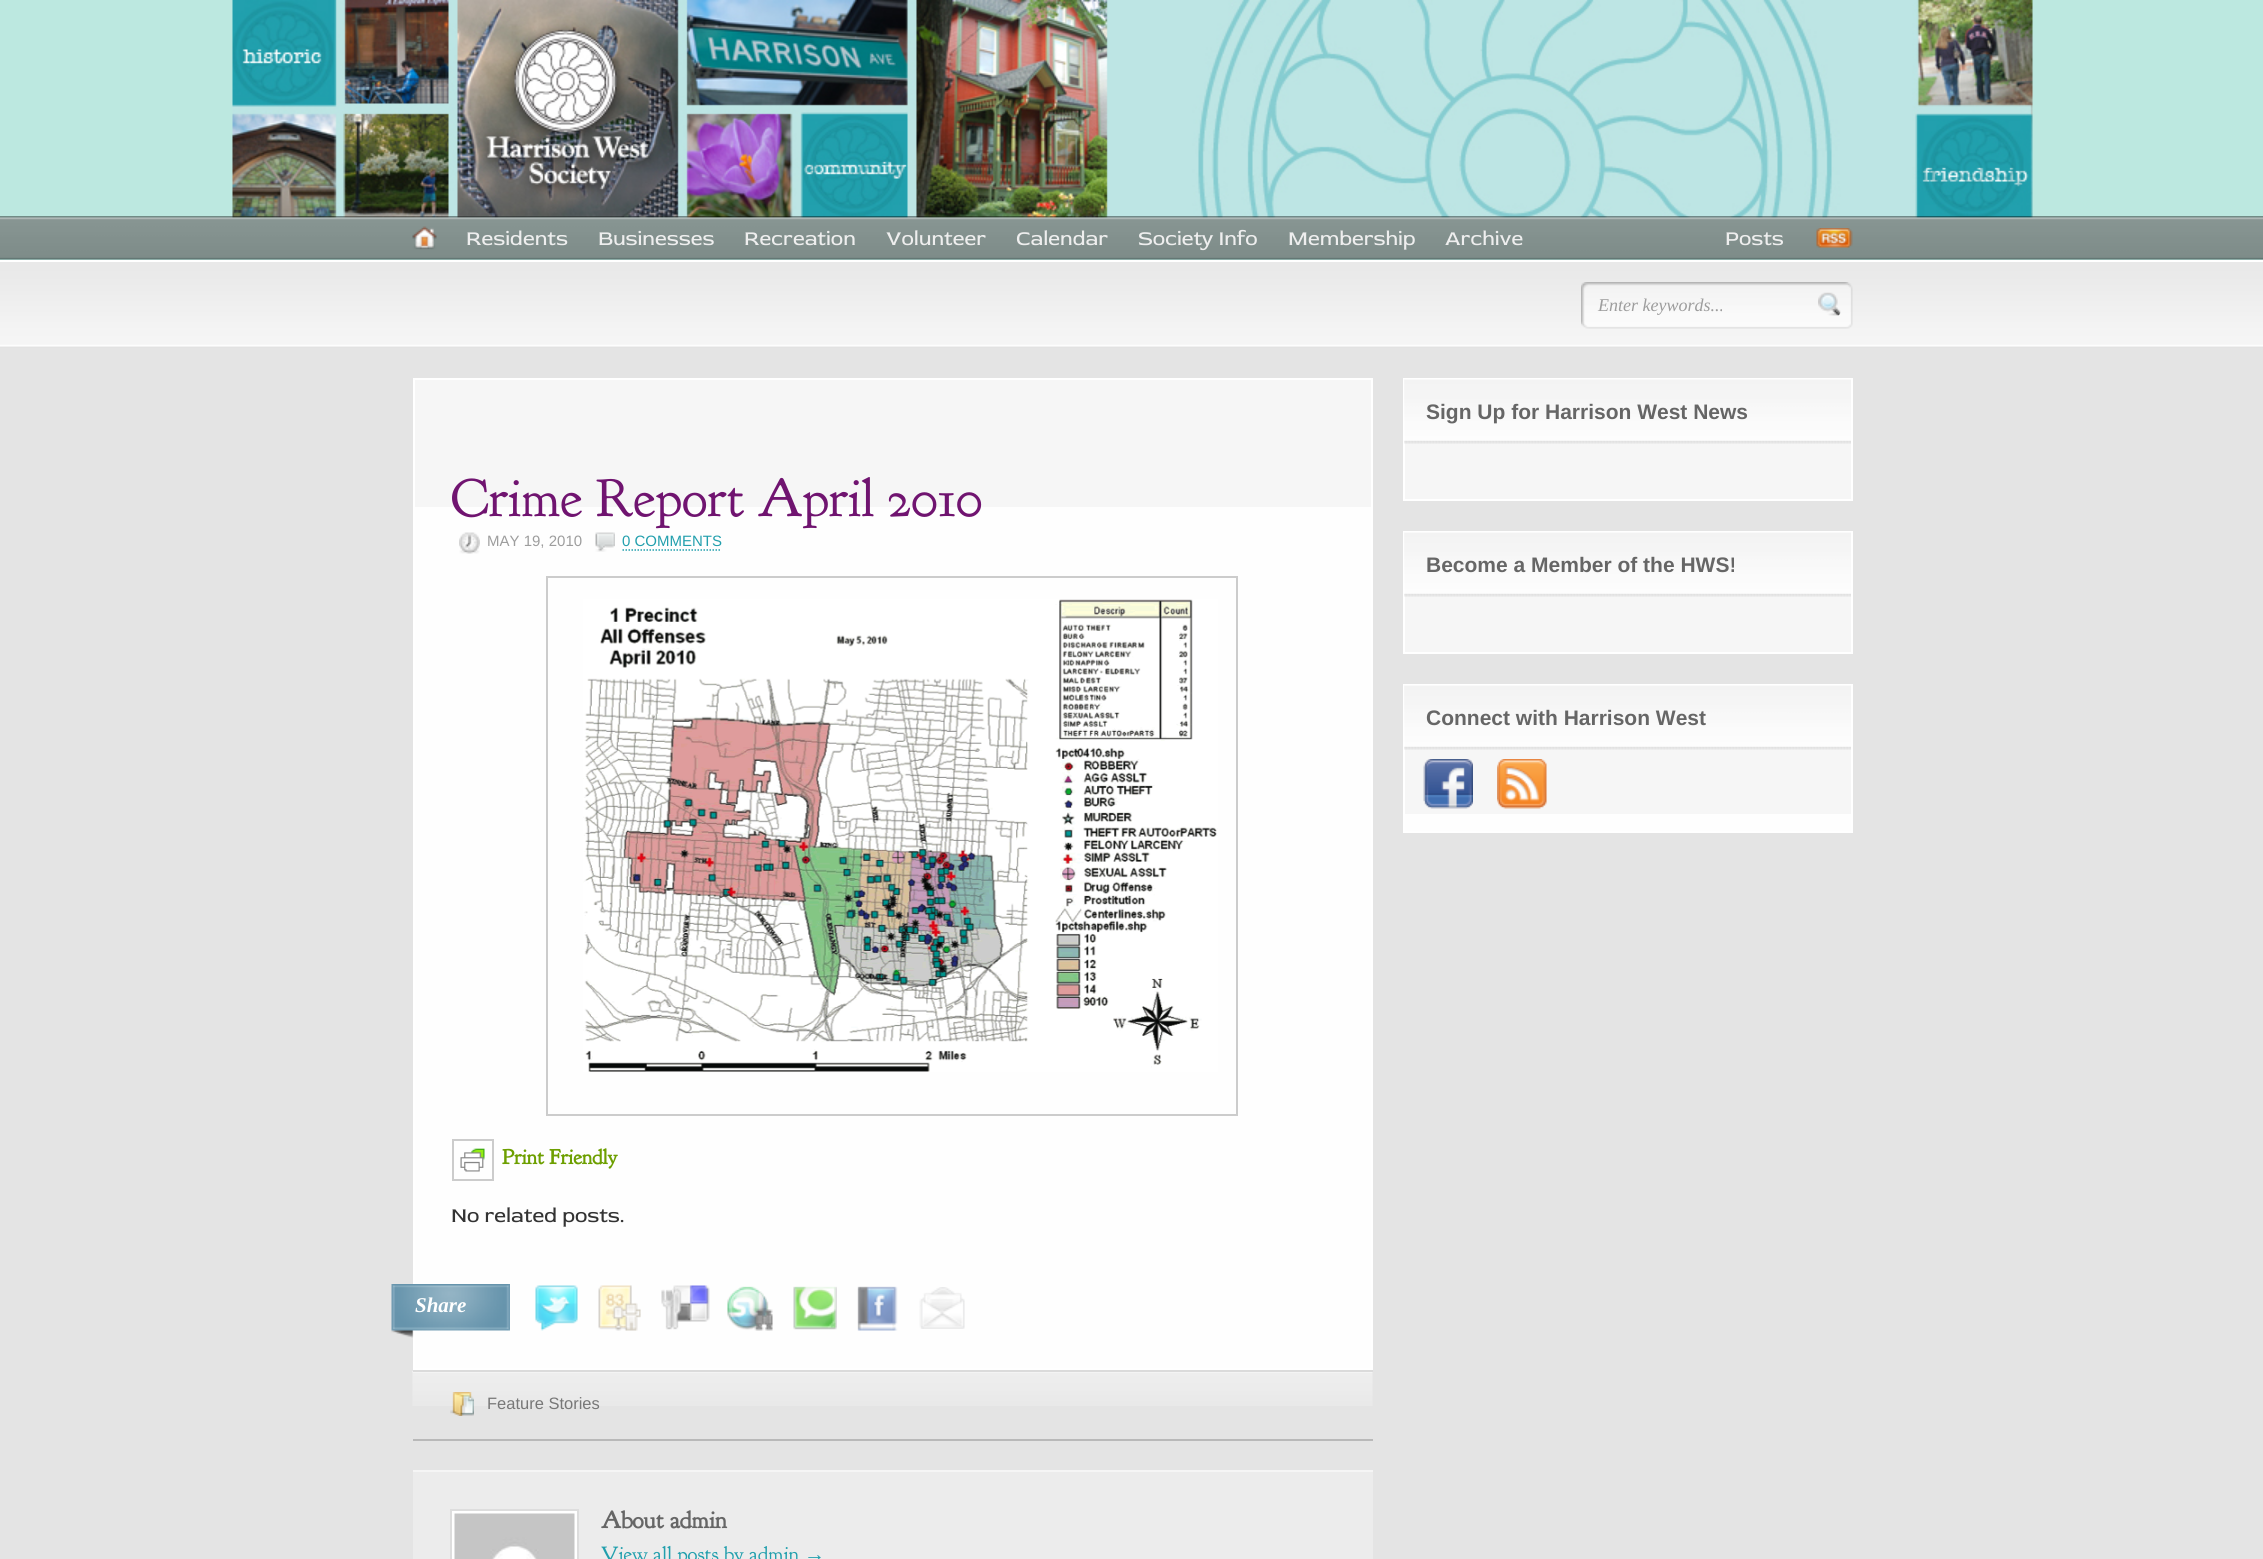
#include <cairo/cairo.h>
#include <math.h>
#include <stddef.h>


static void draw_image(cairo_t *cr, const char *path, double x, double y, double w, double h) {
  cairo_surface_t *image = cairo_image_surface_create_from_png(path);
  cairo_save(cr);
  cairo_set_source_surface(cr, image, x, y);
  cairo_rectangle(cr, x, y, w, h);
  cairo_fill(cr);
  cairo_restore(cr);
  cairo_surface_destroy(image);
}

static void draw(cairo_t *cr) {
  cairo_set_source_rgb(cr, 228 / 255.0, 228 / 255.0, 228 / 255.0);
  cairo_paint(cr);
  cairo_set_source_rgb(cr, 188 / 255.0, 232 / 255.0, 224 / 255.0);
  cairo_rectangle(cr, 0, 0, 2263, 260);
  cairo_fill(cr);
  draw_image(cr, "images/1.png", 232, 0, 1801, 218);
  draw_image(cr, "images/2.png", 0, 216, 2263, 44);
  draw_image(cr, "images/3.png", 412, 226, 25, 24);
  draw_image(cr, "images/4.png", 1816, 228, 37, 20);
  draw_image(cr, "images/5.png", 0, 262, 2263, 86);
  cairo_set_source_rgb(cr, 1, 1, 1);
  cairo_rectangle(cr, 0, 260, 2263, 2);
  cairo_fill(cr);
  draw_image(cr, "images/6.png", 1581, 282, 272, 47);
  draw_image(cr, "images/7.png", 1818, 292, 23, 24);
  cairo_set_source_rgb(cr, 254 / 255.0, 254 / 255.0, 254 / 255.0);
  cairo_rectangle(cr, 415, 507, 956, 861);
  cairo_fill(cr);
  cairo_set_source_rgb(cr, 246 / 255.0, 246 / 255.0, 246 / 255.0);
  cairo_rectangle(cr, 415, 380, 956, 127);
  cairo_fill(cr);
  cairo_rectangle(cr, 414, 379, 958, 990);
  cairo_set_source_rgb(cr, 1, 1, 1);
  cairo_stroke(cr);
  draw_image(cr, "images/8.png", 459, 532, 21, 22);
  draw_image(cr, "images/9.png", 595, 532, 20, 20);
  cairo_new_path(cr);
  cairo_move_to(cr, 622.5, 550);
  cairo_line_to(cr, 721.5, 550);
  cairo_set_source_rgb(cr, 34 / 255.0, 159 / 255.0, 173 / 255.0);
  cairo_set_line_width(cr, 1.5);
  cairo_set_dash(cr, (double[]){1.5, 1.5}, 2, 0);
  cairo_stroke(cr);
  cairo_rectangle(cr, 547, 577, 690, 538);
  cairo_set_source_rgb(cr, 204 / 255.0, 204 / 255.0, 204 / 255.0);
  cairo_set_line_width(cr, 2);
  cairo_set_dash(cr, NULL, 0, 0);
  cairo_stroke(cr);
  draw_image(cr, "images/10.png", 583, 599, 635, 473);
  cairo_rectangle(cr, 453, 1140, 40, 40);
  cairo_stroke(cr);
  draw_image(cr, "images/11.png", 460, 1148, 25, 24);
  draw_image(cr, "images/12.png", 391, 1284, 119, 54);
  draw_image(cr, "images/13.png", 535, 1285, 43, 46);
  draw_image(cr, "images/14.png", 598, 1285, 43, 46);
  draw_image(cr, "images/15.png", 661, 1285, 49, 45);
  draw_image(cr, "images/16.png", 727, 1286, 46, 45);
  draw_image(cr, "images/17.png", 793, 1286, 44, 44);
  draw_image(cr, "images/18.png", 857, 1286, 41, 45);
  draw_image(cr, "images/19.png", 919, 1287, 46, 42);
  draw_image(cr, "images/20.png", 412, 1371, 961, 35);
  cairo_set_source_rgb(cr, 219 / 255.0, 219 / 255.0, 219 / 255.0);
  cairo_rectangle(cr, 413, 1370, 960, 2);
  cairo_fill(cr);
  cairo_set_source_rgb(cr, 185 / 255.0, 185 / 255.0, 185 / 255.0);
  cairo_rectangle(cr, 413, 1439, 960, 2);
  cairo_fill(cr);
  draw_image(cr, "images/21.png", 450, 1392, 24, 24);
  cairo_set_source_rgb(cr, 236 / 255.0, 236 / 255.0, 236 / 255.0);
  cairo_rectangle(cr, 413, 1472, 960, 87);
  cairo_fill(cr);
  cairo_set_source_rgb(cr, 245 / 255.0, 245 / 255.0, 245 / 255.0);
  cairo_rectangle(cr, 413, 1470, 960, 2);
  cairo_fill(cr);
  cairo_set_source_rgb(cr, 1, 1, 1);
  cairo_rectangle(cr, 451, 1510, 127, 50);
  cairo_fill_preserve(cr);
  cairo_set_source_rgb(cr, 221 / 255.0, 221 / 255.0, 221 / 255.0);
  cairo_stroke(cr);
  draw_image(cr, "images/22.png", 454, 1513, 121, 46);
  cairo_set_source_rgb(cr, 246 / 255.0, 246 / 255.0, 246 / 255.0);
  cairo_rectangle(cr, 1404, 379, 448, 121);
  cairo_fill_preserve(cr);
  cairo_set_source_rgb(cr, 1, 1, 1);
  cairo_stroke(cr);
  draw_image(cr, "images/23.png", 1404, 379, 447, 65);
  cairo_set_source_rgb(cr, 246 / 255.0, 246 / 255.0, 246 / 255.0);
  cairo_rectangle(cr, 1404, 532, 448, 121);
  cairo_fill_preserve(cr);
  cairo_set_source_rgb(cr, 1, 1, 1);
  cairo_stroke(cr);
  draw_image(cr, "images/24.png", 1404, 532, 447, 65);
  cairo_set_source_rgb(cr, 254 / 255.0, 254 / 255.0, 254 / 255.0);
  cairo_rectangle(cr, 1405, 814, 446, 17);
  cairo_fill(cr);
  cairo_set_source_rgb(cr, 246 / 255.0, 246 / 255.0, 246 / 255.0);
  cairo_rectangle(cr, 1405, 686, 446, 128);
  cairo_fill(cr);
  cairo_rectangle(cr, 1404, 685, 448, 147);
  cairo_set_source_rgb(cr, 1, 1, 1);
  cairo_stroke(cr);
  draw_image(cr, "images/25.png", 1404, 685, 447, 65);
  draw_image(cr, "images/26.png", 1423, 759, 50, 50);
  draw_image(cr, "images/27.png", 1497, 759, 50, 50);
  cairo_select_font_face(cr, "Red Rose", CAIRO_FONT_SLANT_NORMAL, CAIRO_FONT_WEIGHT_NORMAL);
  cairo_set_font_size(cr, 21);
  cairo_set_source_rgb(cr, 238 / 255.0, 238 / 255.0, 238 / 255.0);
  cairo_move_to(cr, 466, 245);
  cairo_show_text(cr, "Residents");
  cairo_move_to(cr, 598, 245);
  cairo_show_text(cr, "Businesses");
  cairo_move_to(cr, 744, 245);
  cairo_show_text(cr, "Recreation");
  cairo_move_to(cr, 886, 245);
  cairo_show_text(cr, "Volunteer");
  cairo_move_to(cr, 1016, 245);
  cairo_show_text(cr, "Calendar");
  cairo_move_to(cr, 1138, 245);
  cairo_show_text(cr, "Society Info");
  cairo_move_to(cr, 1288, 245);
  cairo_show_text(cr, "Membership");
  cairo_move_to(cr, 1445, 245);
  cairo_show_text(cr, "Archive");
  cairo_move_to(cr, 1725, 245);
  cairo_show_text(cr, "Posts");
  cairo_select_font_face(cr, "Liberation Serif", CAIRO_FONT_SLANT_ITALIC, CAIRO_FONT_WEIGHT_NORMAL);
  cairo_set_font_size(cr, 18);
  cairo_set_source_rgb(cr, 157 / 255.0, 157 / 255.0, 157 / 255.0);
  cairo_move_to(cr, 1598, 311);
  cairo_show_text(cr, "Enter keywords...");
  cairo_select_font_face(cr, "Goudy Bookletter 1911", CAIRO_FONT_SLANT_NORMAL, CAIRO_FONT_WEIGHT_NORMAL);
  cairo_set_font_size(cr, 54);
  cairo_set_source_rgb(cr, 112 / 255.0, 20 / 255.0, 112 / 255.0);
  cairo_move_to(cr, 451, 516);
  cairo_show_text(cr, "Crime Report April 2010");
  cairo_select_font_face(cr, "Liberation Sans", CAIRO_FONT_SLANT_NORMAL, CAIRO_FONT_WEIGHT_NORMAL);
  cairo_set_font_size(cr, 15);
  cairo_set_source_rgb(cr, 157 / 255.0, 157 / 255.0, 157 / 255.0);
  cairo_move_to(cr, 487, 546);
  cairo_show_text(cr, "MAY 19, 2010");
  cairo_set_source_rgb(cr, 34 / 255.0, 159 / 255.0, 173 / 255.0);
  cairo_move_to(cr, 622, 546);
  cairo_show_text(cr, "0 COMMENTS");
  cairo_select_font_face(cr, "Goudy Bookletter 1911", CAIRO_FONT_SLANT_NORMAL, CAIRO_FONT_WEIGHT_BOLD);
  cairo_set_font_size(cr, 21);
  cairo_set_source_rgb(cr, 109 / 255.0, 159 / 255.0, 0);
  cairo_move_to(cr, 502, 1164);
  cairo_show_text(cr, "Print Friendly");
  cairo_select_font_face(cr, "Red Rose", CAIRO_FONT_SLANT_NORMAL, CAIRO_FONT_WEIGHT_NORMAL);
  cairo_set_source_rgb(cr, 51 / 255.0, 51 / 255.0, 51 / 255.0);
  cairo_move_to(cr, 451, 1222);
  cairo_show_text(cr, "No related posts.");
  cairo_select_font_face(cr, "Liberation Serif", CAIRO_FONT_SLANT_ITALIC, CAIRO_FONT_WEIGHT_BOLD);
  cairo_set_source_rgb(cr, 1, 1, 1);
  cairo_move_to(cr, 415, 1312);
  cairo_show_text(cr, "Share");
  cairo_select_font_face(cr, "Liberation Sans", CAIRO_FONT_SLANT_NORMAL, CAIRO_FONT_WEIGHT_NORMAL);
  cairo_set_font_size(cr, 16.5);
  cairo_set_source_rgb(cr, 119 / 255.0, 119 / 255.0, 119 / 255.0);
  cairo_move_to(cr, 487, 1409);
  cairo_show_text(cr, "Feature Stories");
  cairo_select_font_face(cr, "Goudy Bookletter 1911", CAIRO_FONT_SLANT_NORMAL, CAIRO_FONT_WEIGHT_BOLD);
  cairo_set_font_size(cr, 24);
  cairo_set_source_rgb(cr, 102 / 255.0, 102 / 255.0, 102 / 255.0);
  cairo_move_to(cr, 601, 1528);
  cairo_show_text(cr, "About admin");
  cairo_select_font_face(cr, "Goudy Bookletter 1911", CAIRO_FONT_SLANT_NORMAL, CAIRO_FONT_WEIGHT_NORMAL);
  cairo_set_font_size(cr, 21);
  cairo_set_source_rgb(cr, 34 / 255.0, 159 / 255.0, 173 / 255.0);
  cairo_move_to(cr, 601, 1561);
  cairo_show_text(cr, "View all posts by admin");
  cairo_select_font_face(cr, "Liberation Sans", CAIRO_FONT_SLANT_NORMAL, CAIRO_FONT_WEIGHT_NORMAL);
  cairo_move_to(cr, 804, 1561);
  cairo_show_text(cr, "→");
  cairo_select_font_face(cr, "Liberation Sans", CAIRO_FONT_SLANT_NORMAL, CAIRO_FONT_WEIGHT_BOLD);
  cairo_set_source_rgb(cr, 102 / 255.0, 102 / 255.0, 102 / 255.0);
  cairo_move_to(cr, 1426, 419);
  cairo_show_text(cr, "Sign Up for Harrison West News");
  cairo_move_to(cr, 1426, 572);
  cairo_show_text(cr, "Become a Member of the HWS!");
  cairo_move_to(cr, 1426, 725);
  cairo_show_text(cr, "Connect with Harrison West");
}

int main(void) {
  cairo_surface_t *surface = cairo_image_surface_create(CAIRO_FORMAT_RGB24, 2263, 1559);
  cairo_t *cr = cairo_create(surface);
  cairo_font_options_t *options = cairo_font_options_create();
  cairo_font_options_set_hint_metrics(options, CAIRO_HINT_METRICS_OFF);
  cairo_font_options_set_hint_style(options, CAIRO_HINT_STYLE_NONE);
  cairo_set_font_options(cr, options);
  cairo_set_miter_limit(cr, 4);
  draw(cr);
  cairo_surface_write_to_png(surface, "out.png");
  cairo_font_options_destroy(options);
  cairo_destroy(cr);
  cairo_surface_destroy(surface);
  return 0;
}
